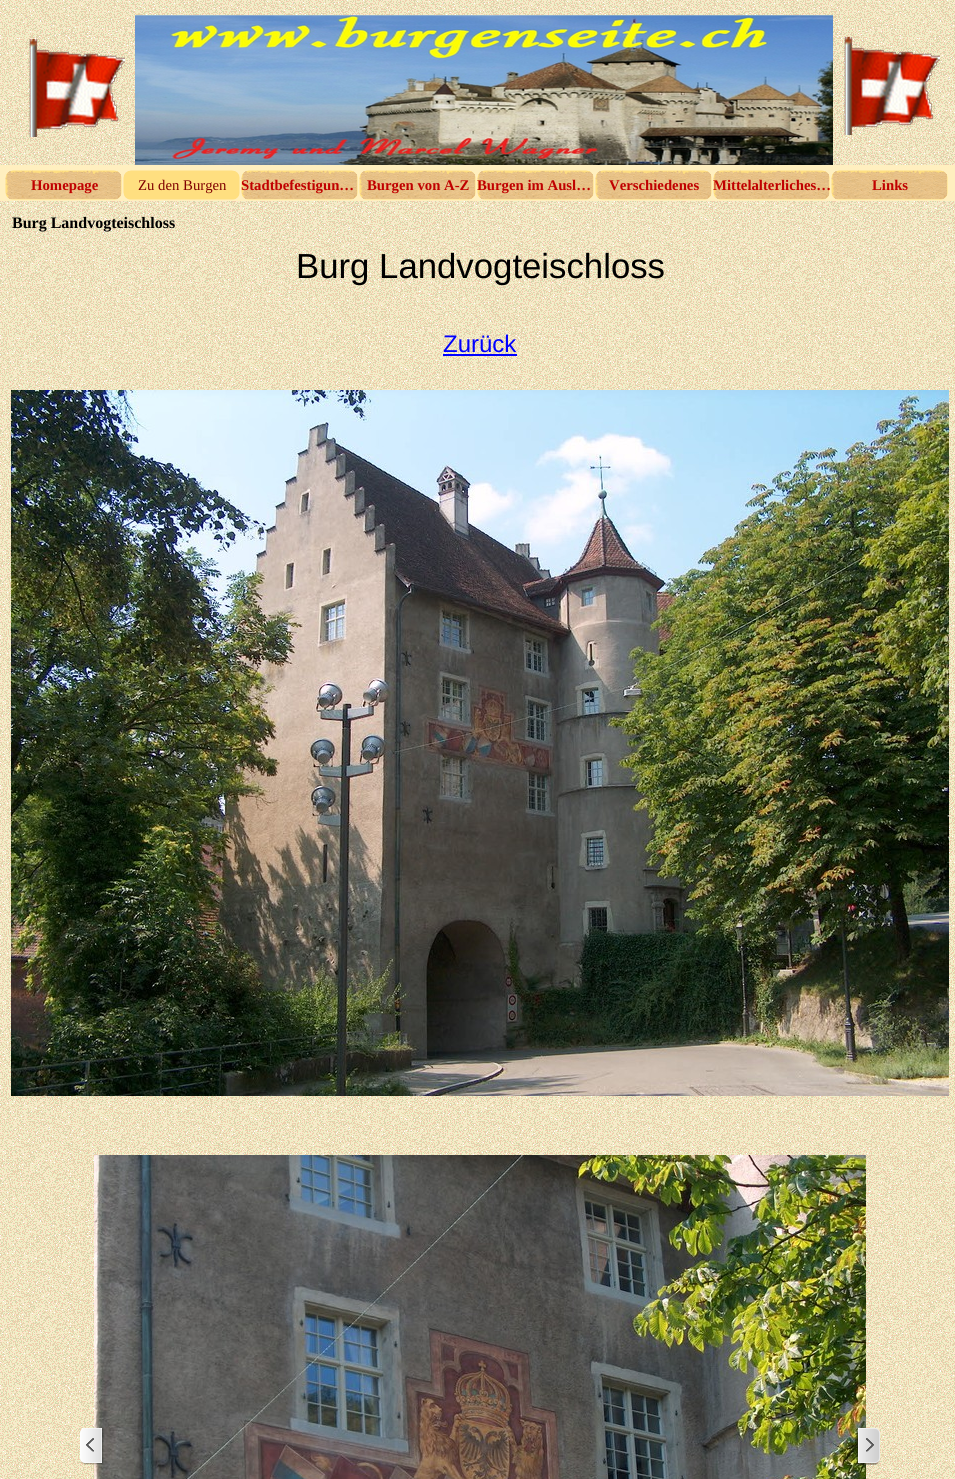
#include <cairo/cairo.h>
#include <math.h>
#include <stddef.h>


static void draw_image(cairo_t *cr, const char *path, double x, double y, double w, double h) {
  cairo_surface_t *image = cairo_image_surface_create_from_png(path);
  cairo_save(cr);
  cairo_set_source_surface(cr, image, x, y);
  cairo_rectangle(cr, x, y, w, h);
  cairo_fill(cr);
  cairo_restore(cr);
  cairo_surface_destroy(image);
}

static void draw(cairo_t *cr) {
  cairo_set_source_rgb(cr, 1, 1, 1);
  cairo_paint(cr);
  draw_image(cr, "images/1.png", 0, 0, 955, 1479);
  draw_image(cr, "images/2.png", 29, 15, 911, 150);
  cairo_set_source_rgb(cr, 1, 239 / 255.0, 191 / 255.0);
  cairo_rectangle(cr, 0, 165, 955, 36);
  cairo_fill(cr);
  draw_image(cr, "images/3.png", 5, 170, 117, 30);
  draw_image(cr, "images/4.png", 123, 170, 117, 30);
  draw_image(cr, "images/3.png", 241, 170, 117, 30);
  draw_image(cr, "images/3.png", 359, 170, 117, 30);
  draw_image(cr, "images/3.png", 477, 170, 117, 30);
  draw_image(cr, "images/3.png", 595, 170, 117, 30);
  draw_image(cr, "images/3.png", 713, 170, 117, 30);
  draw_image(cr, "images/3.png", 831, 170, 117, 30);
  cairo_set_source_rgb(cr, 0, 0, 1);
  cairo_rectangle(cr, 443, 354, 74, 2);
  cairo_fill(cr);
  draw_image(cr, "images/5.png", 11, 390, 938, 706);
  draw_image(cr, "images/7.png", 94, 1155, 772, 324);
  draw_image(cr, "images/6.png", 80, 1428, 24, 37);
  draw_image(cr, "images/8.png", 856, 1428, 24, 37);
  cairo_select_font_face(cr, "Liberation Serif", CAIRO_FONT_SLANT_NORMAL, CAIRO_FONT_WEIGHT_BOLD);
  cairo_set_font_size(cr, 14.75);
  cairo_set_source_rgb(cr, 192 / 255.0, 0, 0);
  cairo_move_to(cr, 31, 190);
  cairo_show_text(cr, "Homepage");
  cairo_select_font_face(cr, "Liberation Serif", CAIRO_FONT_SLANT_NORMAL, CAIRO_FONT_WEIGHT_NORMAL);
  cairo_set_source_rgb(cr, 128 / 255.0, 0, 0);
  cairo_move_to(cr, 138, 190);
  cairo_show_text(cr, "Zu den Burgen");
  cairo_select_font_face(cr, "Liberation Serif", CAIRO_FONT_SLANT_NORMAL, CAIRO_FONT_WEIGHT_BOLD);
  cairo_set_source_rgb(cr, 192 / 255.0, 0, 0);
  cairo_move_to(cr, 241, 190);
  cairo_show_text(cr, "Stadtbefestigun…");
  cairo_move_to(cr, 367, 190);
  cairo_show_text(cr, "Burgen von A-Z");
  cairo_move_to(cr, 477, 190);
  cairo_show_text(cr, "Burgen im Ausl…");
  cairo_move_to(cr, 609, 190);
  cairo_show_text(cr, "Verschiedenes");
  cairo_move_to(cr, 713, 190);
  cairo_show_text(cr, "Mittelalterliches…");
  cairo_move_to(cr, 872, 190);
  cairo_show_text(cr, "Links");
  cairo_set_font_size(cr, 16);
  cairo_set_source_rgb(cr, 0, 0, 0);
  cairo_move_to(cr, 12, 228);
  cairo_show_text(cr, "Burg Landvogteischloss");
  cairo_select_font_face(cr, "Liberation Sans", CAIRO_FONT_SLANT_NORMAL, CAIRO_FONT_WEIGHT_NORMAL);
  cairo_set_font_size(cr, 34.75);
  cairo_move_to(cr, 296, 278);
  cairo_show_text(cr, "Burg Landvogteischloss");
  cairo_set_font_size(cr, 24);
  cairo_set_source_rgb(cr, 0, 0, 1);
  cairo_move_to(cr, 443, 352);
  cairo_show_text(cr, "Zurück");
}

int main(void) {
  cairo_surface_t *surface = cairo_image_surface_create(CAIRO_FORMAT_RGB24, 955, 1479);
  cairo_t *cr = cairo_create(surface);
  cairo_font_options_t *options = cairo_font_options_create();
  cairo_font_options_set_hint_metrics(options, CAIRO_HINT_METRICS_OFF);
  cairo_font_options_set_hint_style(options, CAIRO_HINT_STYLE_NONE);
  cairo_set_font_options(cr, options);
  cairo_set_miter_limit(cr, 4);
  draw(cr);
  cairo_surface_write_to_png(surface, "out.png");
  cairo_font_options_destroy(options);
  cairo_destroy(cr);
  cairo_surface_destroy(surface);
  return 0;
}
